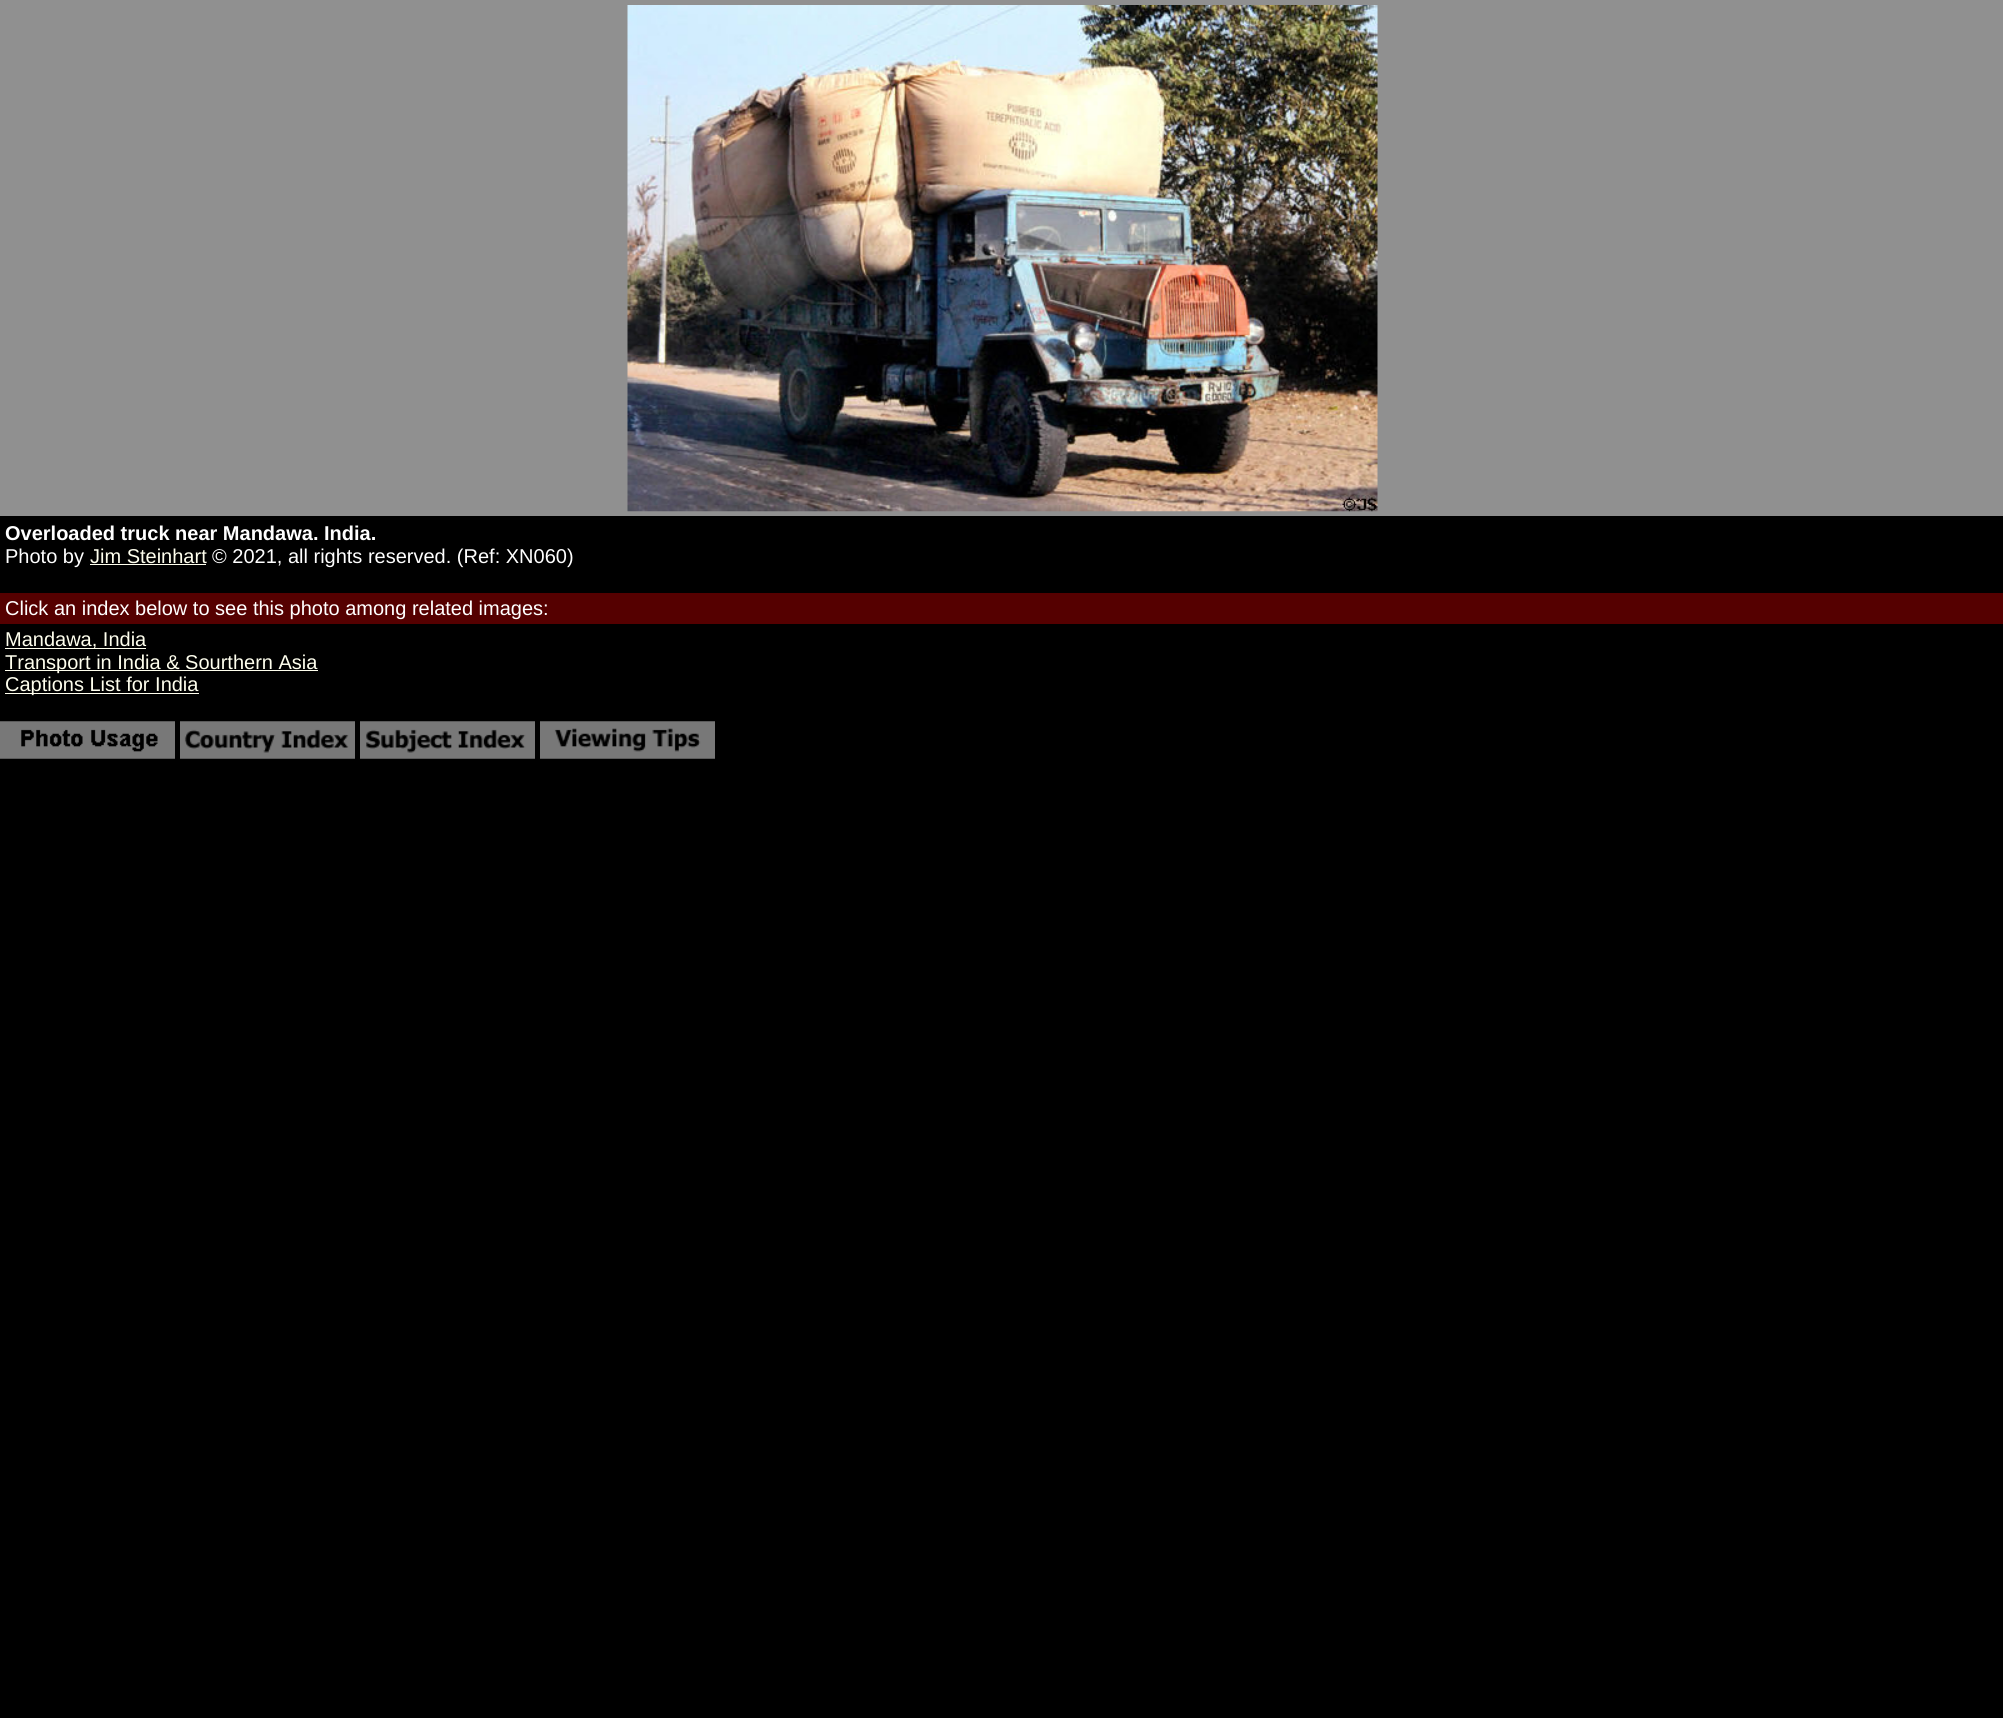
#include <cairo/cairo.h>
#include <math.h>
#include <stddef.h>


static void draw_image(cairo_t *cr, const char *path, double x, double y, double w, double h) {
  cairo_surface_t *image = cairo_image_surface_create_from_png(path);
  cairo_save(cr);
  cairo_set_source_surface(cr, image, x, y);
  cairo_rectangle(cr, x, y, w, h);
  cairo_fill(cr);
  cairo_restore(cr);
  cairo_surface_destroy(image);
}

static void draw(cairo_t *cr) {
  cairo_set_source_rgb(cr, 0, 0, 0);
  cairo_paint(cr);
  cairo_set_source_rgb(cr, 144 / 255.0, 144 / 255.0, 144 / 255.0);
  cairo_rectangle(cr, 0, 0, 2003, 516);
  cairo_fill(cr);
  draw_image(cr, "images/1.png", 627, 5, 751, 507);
  cairo_set_source_rgb(cr, 1, 1, 238 / 255.0);
  cairo_rectangle(cr, 90, 564, 116, 1);
  cairo_fill(cr);
  cairo_set_source_rgb(cr, 85 / 255.0, 0, 0);
  cairo_rectangle(cr, 0, 593, 2003, 31);
  cairo_fill(cr);
  cairo_set_source_rgb(cr, 1, 1, 238 / 255.0);
  cairo_rectangle(cr, 5, 648, 141, 1);
  cairo_fill(cr);
  cairo_rectangle(cr, 5, 670, 313, 1);
  cairo_fill(cr);
  cairo_rectangle(cr, 5, 693, 194, 1);
  cairo_fill(cr);
  draw_image(cr, "images/2.png", 0, 721, 175, 38);
  draw_image(cr, "images/3.png", 180, 721, 175, 38);
  draw_image(cr, "images/4.png", 360, 721, 175, 38);
  draw_image(cr, "images/5.png", 540, 721, 175, 38);
  cairo_select_font_face(cr, "Liberation Sans", CAIRO_FONT_SLANT_NORMAL, CAIRO_FONT_WEIGHT_BOLD);
  cairo_set_font_size(cr, 20);
  cairo_set_source_rgb(cr, 1, 1, 1);
  cairo_move_to(cr, 5, 540);
  cairo_show_text(cr, "Overloaded truck near Mandawa. India.");
  cairo_select_font_face(cr, "Liberation Sans", CAIRO_FONT_SLANT_NORMAL, CAIRO_FONT_WEIGHT_NORMAL);
  cairo_move_to(cr, 5, 563);
  cairo_show_text(cr, "Photo by");
  cairo_set_source_rgb(cr, 1, 1, 238 / 255.0);
  cairo_move_to(cr, 90, 563);
  cairo_show_text(cr, "Jim Steinhart");
  cairo_set_source_rgb(cr, 1, 1, 1);
  cairo_move_to(cr, 212, 563);
  cairo_show_text(cr, "© 2021, all rights reserved. (Ref: XN060)");
  cairo_move_to(cr, 5, 615);
  cairo_show_text(cr, "Click an index below to see this photo among related images:");
  cairo_set_source_rgb(cr, 1, 1, 238 / 255.0);
  cairo_move_to(cr, 5, 646);
  cairo_show_text(cr, "Mandawa, India");
  cairo_move_to(cr, 5, 669);
  cairo_show_text(cr, "Transport in India & Sourthern Asia");
  cairo_move_to(cr, 5, 691);
  cairo_show_text(cr, "Captions List for India");
}

int main(void) {
  cairo_surface_t *surface = cairo_image_surface_create(CAIRO_FORMAT_RGB24, 2003, 1718);
  cairo_t *cr = cairo_create(surface);
  cairo_font_options_t *options = cairo_font_options_create();
  cairo_font_options_set_hint_metrics(options, CAIRO_HINT_METRICS_OFF);
  cairo_font_options_set_hint_style(options, CAIRO_HINT_STYLE_NONE);
  cairo_set_font_options(cr, options);
  cairo_set_miter_limit(cr, 4);
  draw(cr);
  cairo_surface_write_to_png(surface, "out.png");
  cairo_font_options_destroy(options);
  cairo_destroy(cr);
  cairo_surface_destroy(surface);
  return 0;
}
